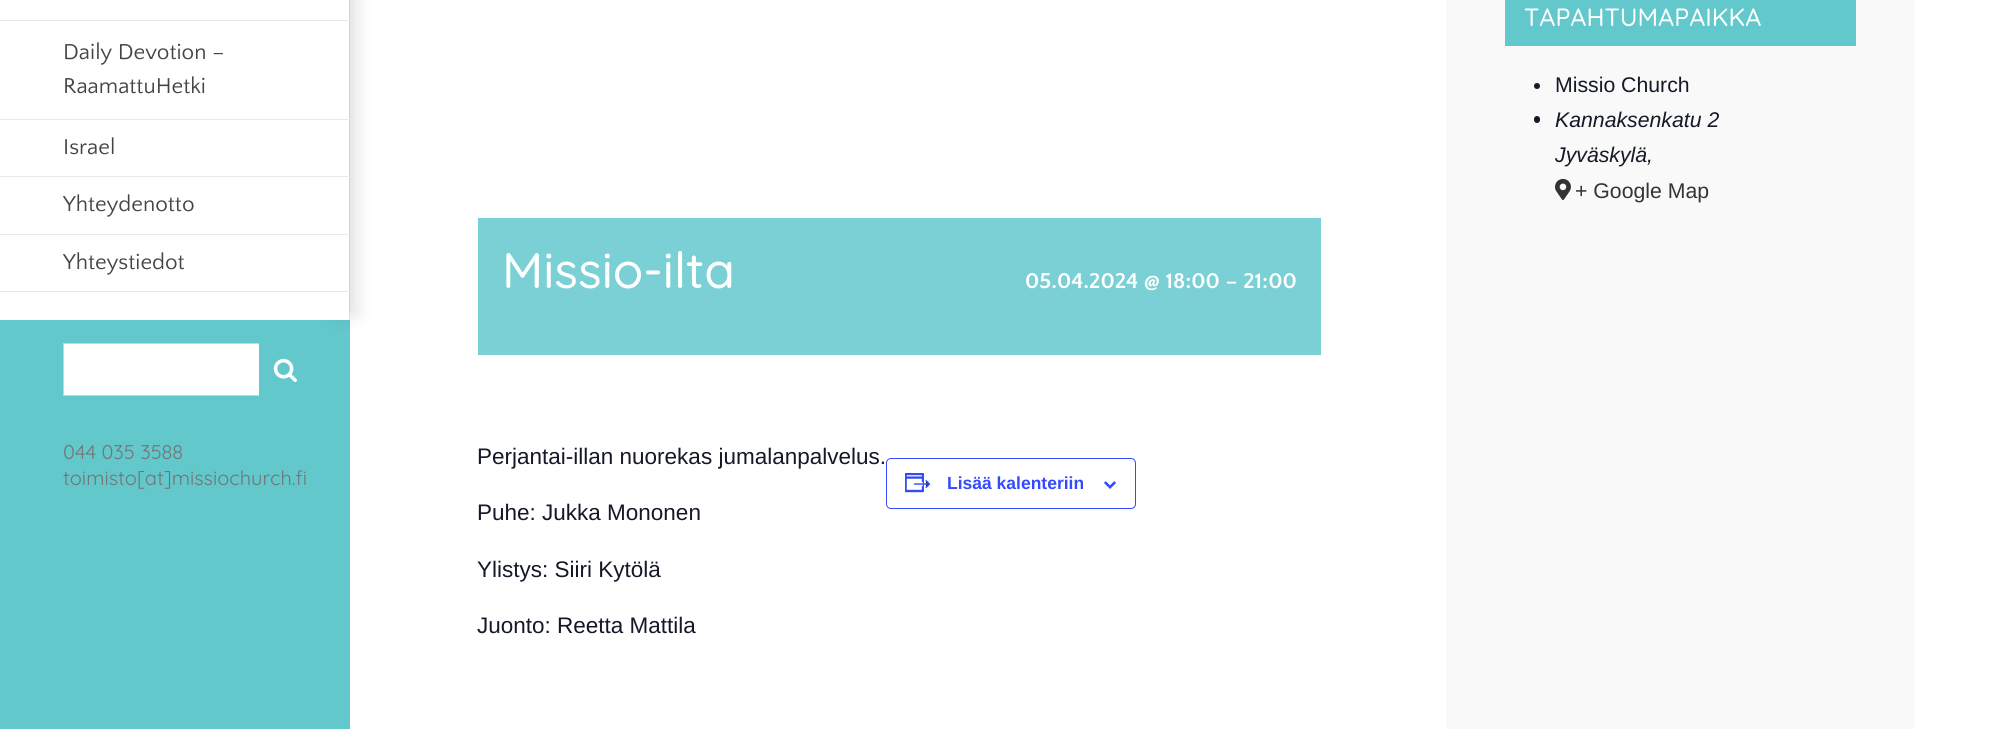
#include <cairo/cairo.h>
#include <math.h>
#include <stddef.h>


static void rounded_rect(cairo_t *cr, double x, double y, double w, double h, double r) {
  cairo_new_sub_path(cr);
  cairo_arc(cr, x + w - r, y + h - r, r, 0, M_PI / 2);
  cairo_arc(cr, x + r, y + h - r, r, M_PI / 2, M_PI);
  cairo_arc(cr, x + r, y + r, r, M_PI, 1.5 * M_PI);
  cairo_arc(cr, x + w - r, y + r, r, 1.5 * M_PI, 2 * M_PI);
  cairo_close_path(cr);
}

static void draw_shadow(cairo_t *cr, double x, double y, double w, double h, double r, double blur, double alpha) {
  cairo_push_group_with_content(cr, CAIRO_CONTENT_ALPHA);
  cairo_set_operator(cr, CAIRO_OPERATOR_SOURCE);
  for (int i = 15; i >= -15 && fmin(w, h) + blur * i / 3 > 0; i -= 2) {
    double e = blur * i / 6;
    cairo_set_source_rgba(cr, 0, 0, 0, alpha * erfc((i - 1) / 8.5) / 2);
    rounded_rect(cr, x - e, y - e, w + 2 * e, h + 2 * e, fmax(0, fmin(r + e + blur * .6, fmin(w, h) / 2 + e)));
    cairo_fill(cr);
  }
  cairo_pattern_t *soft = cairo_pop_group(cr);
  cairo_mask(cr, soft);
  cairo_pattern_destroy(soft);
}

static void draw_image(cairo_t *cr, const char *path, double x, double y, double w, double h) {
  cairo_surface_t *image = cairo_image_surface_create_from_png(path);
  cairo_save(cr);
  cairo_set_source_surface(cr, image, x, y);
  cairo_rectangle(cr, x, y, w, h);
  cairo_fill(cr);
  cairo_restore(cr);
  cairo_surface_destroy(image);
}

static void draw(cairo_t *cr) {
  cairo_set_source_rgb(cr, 98 / 255.0, 200 / 255.0, 204 / 255.0);
  cairo_paint(cr);
  cairo_set_source_rgb(cr, 1, 1, 1);
  cairo_rectangle(cr, 0, 0, 349, 320);
  cairo_fill(cr);
  cairo_set_source_rgb(cr, 234 / 255.0, 234 / 255.0, 234 / 255.0);
  cairo_rectangle(cr, 349, 0, 1, 320);
  cairo_fill(cr);
  cairo_set_source_rgb(cr, 1, 1, 1);
  cairo_rectangle(cr, 350, 0, 1666, 729);
  cairo_fill(cr);
  cairo_save(cr);
  cairo_set_fill_rule(cr, CAIRO_FILL_RULE_EVEN_ODD);
  cairo_new_path(cr);
  cairo_move_to(cr, 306, 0);
  cairo_line_to(cr, 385, 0);
  cairo_line_to(cr, 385, 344);
  cairo_line_to(cr, 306, 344);
  cairo_close_path(cr);
  cairo_move_to(cr, 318, -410);
  cairo_line_to(cr, 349, -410);
  cairo_line_to(cr, 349, 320);
  cairo_line_to(cr, 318, 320);
  cairo_close_path(cr);
  cairo_clip(cr);
  cairo_set_source_rgb(cr, 0, 0, 0);
  draw_shadow(cr, 336, -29, 19, 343, 0, 9.5, 0.14);
  cairo_restore(cr);
  cairo_set_source_rgb(cr, 234 / 255.0, 234 / 255.0, 234 / 255.0);
  cairo_rectangle(cr, 0, 20, 350, 1);
  cairo_fill(cr);
  cairo_rectangle(cr, 0, 119, 350, 1);
  cairo_fill(cr);
  cairo_rectangle(cr, 0, 176, 350, 1);
  cairo_fill(cr);
  cairo_rectangle(cr, 0, 234, 350, 1);
  cairo_fill(cr);
  cairo_rectangle(cr, 0, 291, 350, 1);
  cairo_fill(cr);
  cairo_set_source_rgb(cr, 1, 1, 1);
  cairo_rectangle(cr, 64, 344, 195, 51);
  cairo_fill(cr);
  cairo_set_source_rgb(cr, 210 / 255.0, 210 / 255.0, 210 / 255.0);
  cairo_rectangle(cr, 63, 343, 196, 1);
  cairo_fill(cr);
  cairo_rectangle(cr, 63, 395, 196, 1);
  cairo_fill(cr);
  cairo_rectangle(cr, 63, 343, 1, 53);
  cairo_fill(cr);
  draw_image(cr, "images/1.png", 273, 358, 24, 25);
  cairo_set_source_rgb(cr, 249 / 255.0, 249 / 255.0, 249 / 255.0);
  cairo_rectangle(cr, 1446, 0, 469, 729);
  cairo_fill(cr);
  cairo_set_source_rgb(cr, 98 / 255.0, 200 / 255.0, 204 / 255.0);
  cairo_rectangle(cr, 1505, 0, 351, 46);
  cairo_fill(cr);
  cairo_set_source_rgb(cr, 20 / 255.0, 24 / 255.0, 39 / 255.0);
  cairo_arc(cr, 1537, 86, 3, 0, 2 * M_PI);
  cairo_fill(cr);
  rounded_rect(cr, 1534, 116, 6, 7, 3);
  cairo_fill(cr);
  draw_image(cr, "images/2.png", 1555, 178, 16, 23);
  cairo_set_source_rgb(cr, 122 / 255.0, 208 / 255.0, 212 / 255.0);
  cairo_rectangle(cr, 478, 218, 843, 137);
  cairo_fill(cr);
  rounded_rect(cr, 886.5, 458.5, 249, 50, 4.5);
  cairo_set_source_rgb(cr, 51 / 255.0, 74 / 255.0, 1);
  cairo_set_line_width(cr, 1);
  cairo_stroke(cr);
  draw_image(cr, "images/3.png", 905, 473, 26, 20);
  draw_image(cr, "images/4.png", 1104, 481, 12, 8);
  cairo_select_font_face(cr, "Quattrocento Sans", CAIRO_FONT_SLANT_NORMAL, CAIRO_FONT_WEIGHT_NORMAL);
  cairo_set_font_size(cr, 22.5);
  cairo_set_source_rgb(cr, 68 / 255.0, 68 / 255.0, 68 / 255.0);
  cairo_move_to(cr, 63, 59);
  cairo_show_text(cr, "Daily Devotion –");
  cairo_move_to(cr, 63, 93);
  cairo_show_text(cr, "RaamattuHetki");
  cairo_move_to(cr, 63, 154);
  cairo_show_text(cr, "Israel");
  cairo_move_to(cr, 63, 211);
  cairo_show_text(cr, "Yhteydenotto");
  cairo_move_to(cr, 63, 269);
  cairo_show_text(cr, "Yhteystiedot");
  cairo_select_font_face(cr, "Quicksand", CAIRO_FONT_SLANT_NORMAL, CAIRO_FONT_WEIGHT_NORMAL);
  cairo_set_font_size(cr, 20);
  cairo_set_source_rgb(cr, 116 / 255.0, 116 / 255.0, 116 / 255.0);
  cairo_move_to(cr, 63, 459);
  cairo_show_text(cr, "044 035 3588");
  cairo_move_to(cr, 63, 485);
  cairo_show_text(cr, "toimisto[at]missiochurch.fi");
  cairo_select_font_face(cr, "Quicksand Medium", CAIRO_FONT_SLANT_NORMAL, CAIRO_FONT_WEIGHT_NORMAL);
  cairo_set_font_size(cr, 25);
  cairo_set_source_rgb(cr, 1, 1, 1);
  cairo_move_to(cr, 1524, 26);
  cairo_show_text(cr, "TAPAHTUMAPAIKKA");
  cairo_select_font_face(cr, "Liberation Sans", CAIRO_FONT_SLANT_NORMAL, CAIRO_FONT_WEIGHT_NORMAL);
  cairo_set_font_size(cr, 21.25);
  cairo_set_source_rgb(cr, 20 / 255.0, 24 / 255.0, 39 / 255.0);
  cairo_move_to(cr, 1555, 92);
  cairo_show_text(cr, "Missio Church");
  cairo_select_font_face(cr, "Liberation Sans", CAIRO_FONT_SLANT_ITALIC, CAIRO_FONT_WEIGHT_NORMAL);
  cairo_move_to(cr, 1555, 127);
  cairo_show_text(cr, "Kannaksenkatu 2");
  cairo_move_to(cr, 1555, 162);
  cairo_show_text(cr, "Jyväskylä,");
  cairo_select_font_face(cr, "Liberation Sans", CAIRO_FONT_SLANT_NORMAL, CAIRO_FONT_WEIGHT_NORMAL);
  cairo_set_source_rgb(cr, 51 / 255.0, 51 / 255.0, 51 / 255.0);
  cairo_move_to(cr, 1575, 198);
  cairo_show_text(cr, "+ Google Map");
  cairo_select_font_face(cr, "Quicksand Medium", CAIRO_FONT_SLANT_NORMAL, CAIRO_FONT_WEIGHT_NORMAL);
  cairo_set_font_size(cr, 50);
  cairo_set_source_rgb(cr, 1, 1, 1);
  cairo_move_to(cr, 502, 288);
  cairo_show_text(cr, "Missio-ilta");
  cairo_select_font_face(cr, "Quattrocento Sans", CAIRO_FONT_SLANT_NORMAL, CAIRO_FONT_WEIGHT_BOLD);
  cairo_set_font_size(cr, 22.5);
  cairo_move_to(cr, 1025, 288);
  cairo_show_text(cr, "05.04.2024 @ 18:00 – 21:00");
  cairo_select_font_face(cr, "Liberation Sans", CAIRO_FONT_SLANT_NORMAL, CAIRO_FONT_WEIGHT_NORMAL);
  cairo_set_source_rgb(cr, 20 / 255.0, 24 / 255.0, 39 / 255.0);
  cairo_move_to(cr, 477, 464);
  cairo_show_text(cr, "Perjantai-illan nuorekas jumalanpalvelus.");
  cairo_move_to(cr, 477, 520);
  cairo_show_text(cr, "Puhe: Jukka Mononen");
  cairo_move_to(cr, 477, 577);
  cairo_show_text(cr, "Ylistys: Siiri Kytölä");
  cairo_move_to(cr, 477, 633);
  cairo_show_text(cr, "Juonto: Reetta Mattila");
  cairo_select_font_face(cr, "Liberation Sans", CAIRO_FONT_SLANT_NORMAL, CAIRO_FONT_WEIGHT_BOLD);
  cairo_set_font_size(cr, 17.5);
  cairo_set_source_rgb(cr, 51 / 255.0, 74 / 255.0, 1);
  cairo_move_to(cr, 947, 489);
  cairo_show_text(cr, "Lisää kalenteriin");
}

int main(void) {
  cairo_surface_t *surface = cairo_image_surface_create(CAIRO_FORMAT_RGB24, 2016, 729);
  cairo_t *cr = cairo_create(surface);
  cairo_font_options_t *options = cairo_font_options_create();
  cairo_font_options_set_hint_metrics(options, CAIRO_HINT_METRICS_OFF);
  cairo_font_options_set_hint_style(options, CAIRO_HINT_STYLE_NONE);
  cairo_set_font_options(cr, options);
  cairo_set_miter_limit(cr, 4);
  draw(cr);
  cairo_surface_write_to_png(surface, "out.png");
  cairo_font_options_destroy(options);
  cairo_destroy(cr);
  cairo_surface_destroy(surface);
  return 0;
}
